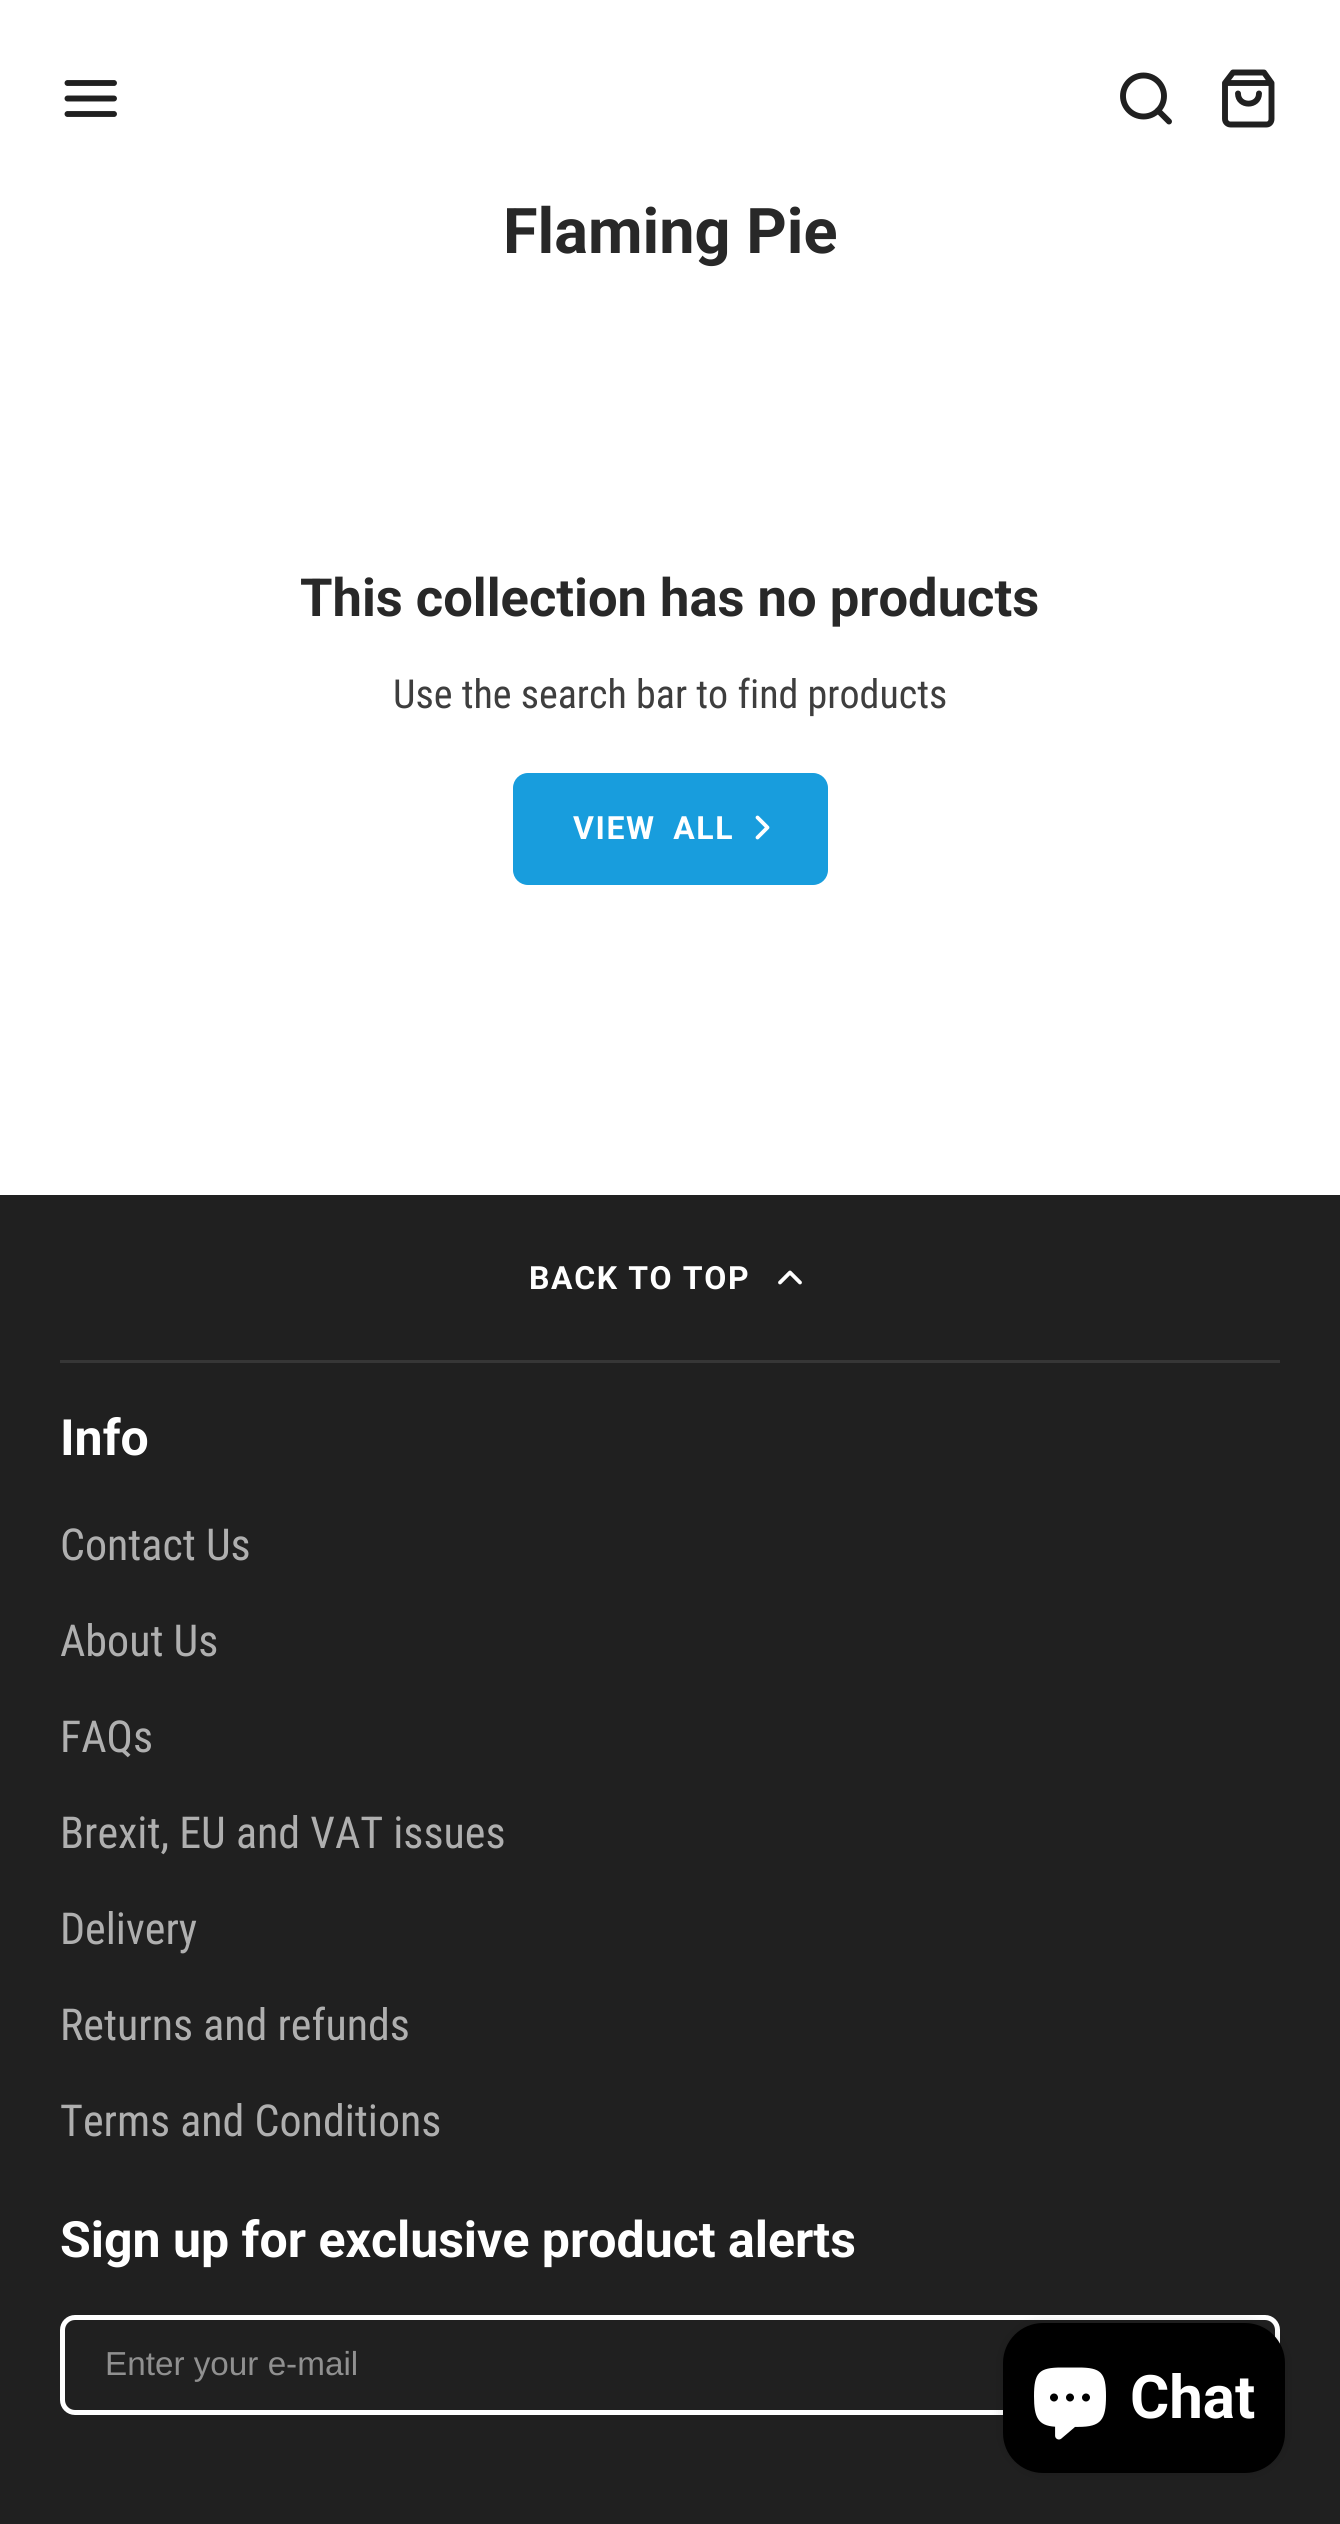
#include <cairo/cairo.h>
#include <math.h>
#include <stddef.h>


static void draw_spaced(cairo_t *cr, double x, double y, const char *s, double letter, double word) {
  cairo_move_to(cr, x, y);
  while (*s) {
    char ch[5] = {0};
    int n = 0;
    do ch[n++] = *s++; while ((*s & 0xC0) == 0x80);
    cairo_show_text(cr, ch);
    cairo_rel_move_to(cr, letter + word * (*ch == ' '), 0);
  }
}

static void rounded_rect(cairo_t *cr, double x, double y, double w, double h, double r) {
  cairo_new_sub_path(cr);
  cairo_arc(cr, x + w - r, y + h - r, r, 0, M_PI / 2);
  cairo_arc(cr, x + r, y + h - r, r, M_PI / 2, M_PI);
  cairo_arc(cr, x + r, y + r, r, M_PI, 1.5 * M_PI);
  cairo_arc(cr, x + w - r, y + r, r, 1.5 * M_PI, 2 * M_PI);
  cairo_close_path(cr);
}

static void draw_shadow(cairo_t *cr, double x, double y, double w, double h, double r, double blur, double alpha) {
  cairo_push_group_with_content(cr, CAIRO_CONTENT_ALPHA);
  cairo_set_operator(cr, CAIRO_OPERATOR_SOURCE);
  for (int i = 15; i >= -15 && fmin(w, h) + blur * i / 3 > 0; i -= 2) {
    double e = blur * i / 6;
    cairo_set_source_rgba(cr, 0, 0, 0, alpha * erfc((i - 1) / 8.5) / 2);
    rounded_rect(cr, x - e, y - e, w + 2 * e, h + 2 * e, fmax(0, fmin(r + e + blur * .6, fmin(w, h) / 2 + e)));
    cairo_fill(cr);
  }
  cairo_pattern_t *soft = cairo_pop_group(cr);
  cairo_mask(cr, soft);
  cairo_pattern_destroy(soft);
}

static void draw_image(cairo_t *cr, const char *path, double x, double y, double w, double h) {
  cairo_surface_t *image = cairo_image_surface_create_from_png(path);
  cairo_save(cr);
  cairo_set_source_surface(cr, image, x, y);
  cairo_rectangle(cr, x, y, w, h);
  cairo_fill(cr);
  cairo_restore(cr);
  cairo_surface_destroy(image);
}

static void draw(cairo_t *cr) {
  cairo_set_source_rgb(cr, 1, 1, 1);
  cairo_paint(cr);
  cairo_new_path(cr);
  cairo_move_to(cr, 67.5, 98.5);
  cairo_line_to(cr, 114, 98.5);
  cairo_move_to(cr, 67.5, 83);
  cairo_line_to(cr, 114, 83);
  cairo_move_to(cr, 67.5, 114);
  cairo_line_to(cr, 114, 114);
  cairo_set_source_rgb(cr, 32 / 255.0, 32 / 255.0, 32 / 255.0);
  cairo_set_line_width(cr, 5.9);
  cairo_set_line_cap(cr, CAIRO_LINE_CAP_ROUND);
  cairo_set_line_join(cr, CAIRO_LINE_JOIN_ROUND);
  cairo_stroke(cr);
  cairo_arc(cr, 1143.5, 96, 20.5, 0, 2 * M_PI);
  cairo_set_line_cap(cr, CAIRO_LINE_CAP_BUTT);
  cairo_set_line_join(cr, CAIRO_LINE_JOIN_MITER);
  cairo_stroke(cr);
  cairo_new_path(cr);
  cairo_move_to(cr, 1169, 121.5);
  cairo_line_to(cr, 1158, 110.5);
  cairo_set_line_cap(cr, CAIRO_LINE_CAP_ROUND);
  cairo_set_line_join(cr, CAIRO_LINE_JOIN_ROUND);
  cairo_stroke(cr);
  cairo_new_path(cr);
  cairo_move_to(cr, 1233, 72.5);
  cairo_line_to(cr, 1225, 83);
  cairo_line_to(cr, 1225, 119);
  cairo_curve_to(cr, 1225, 122, 1227.5, 124.5, 1230.5, 124.5);
  cairo_line_to(cr, 1266.5, 124.5);
  cairo_curve_to(cr, 1269.5, 124.5, 1271.5, 122, 1271.5, 119);
  cairo_line_to(cr, 1271.5, 83);
  cairo_line_to(cr, 1264, 72.5);
  cairo_close_path(cr);
  cairo_move_to(cr, 1227.5, 83);
  cairo_line_to(cr, 1269.5, 83);
  cairo_move_to(cr, 1259, 93.5);
  cairo_curve_to(cr, 1259, 107, 1238, 107, 1238, 93.5);
  cairo_stroke(cr);
  cairo_set_source_rgb(cr, 24 / 255.0, 157 / 255.0, 221 / 255.0);
  rounded_rect(cr, 513, 773, 315, 112, 15);
  cairo_fill(cr);
  cairo_new_path(cr);
  cairo_move_to(cr, 757.5, 837.5);
  cairo_line_to(cr, 767.5, 827.5);
  cairo_line_to(cr, 757.5, 817.5);
  cairo_set_source_rgb(cr, 1, 1, 1);
  cairo_set_line_width(cr, 3.8);
  cairo_stroke(cr);
  cairo_set_source_rgb(cr, 32 / 255.0, 32 / 255.0, 32 / 255.0);
  cairo_rectangle(cr, 0, 1195, 1340, 1329);
  cairo_fill(cr);
  cairo_new_path(cr);
  cairo_move_to(cr, 800, 1282.5);
  cairo_line_to(cr, 790, 1272.5);
  cairo_line_to(cr, 780, 1282.5);
  cairo_set_source_rgb(cr, 1, 1, 1);
  cairo_stroke(cr);
  cairo_set_source_rgb(cr, 54 / 255.0, 54 / 255.0, 54 / 255.0);
  cairo_rectangle(cr, 60, 1360, 1220, 3);
  cairo_fill(cr);
  rounded_rect(cr, 62.5, 2317.5, 1215, 95, 12.5);
  cairo_set_source_rgb(cr, 1, 1, 1);
  cairo_set_line_width(cr, 5);
  cairo_set_line_cap(cr, CAIRO_LINE_CAP_BUTT);
  cairo_set_line_join(cr, CAIRO_LINE_JOIN_MITER);
  cairo_stroke(cr);
  cairo_set_source_rgb(cr, 0, 0, 0);
  draw_shadow(cr, 1003, 2323, 282, 150, 40, 6, 0.15);
  cairo_set_source_rgb(cr, 0, 0, 0);
  rounded_rect(cr, 1003, 2323, 282, 150, 40);
  cairo_fill(cr);
  draw_image(cr, "images/1.png", 1034, 2367, 72, 73);
  cairo_select_font_face(cr, "Roboto", CAIRO_FONT_SLANT_NORMAL, CAIRO_FONT_WEIGHT_BOLD);
  cairo_set_font_size(cr, 63);
  cairo_set_source_rgb(cr, 40 / 255.0, 40 / 255.0, 40 / 255.0);
  cairo_move_to(cr, 503, 253);
  cairo_show_text(cr, "Flaming Pie");
  cairo_set_font_size(cr, 52.5);
  cairo_move_to(cr, 300, 616);
  cairo_show_text(cr, "This collection has no products");
  cairo_select_font_face(cr, "Roboto Condensed", CAIRO_FONT_SLANT_NORMAL, CAIRO_FONT_WEIGHT_NORMAL);
  cairo_set_font_size(cr, 40);
  cairo_set_source_rgb(cr, 62 / 255.0, 62 / 255.0, 62 / 255.0);
  cairo_move_to(cr, 393, 708);
  cairo_show_text(cr, "Use the search bar to find products");
  cairo_select_font_face(cr, "Roboto", CAIRO_FONT_SLANT_NORMAL, CAIRO_FONT_WEIGHT_BOLD);
  cairo_set_font_size(cr, 32);
  cairo_set_source_rgb(cr, 1, 1, 1);
  draw_spaced(cr, 573, 839, "VIEW ALL", 1.6, 8);
  draw_spaced(cr, 529, 1289, "BACK TO TOP", 1.6, 0);
  cairo_set_font_size(cr, 50);
  cairo_move_to(cr, 60, 1455);
  cairo_show_text(cr, "Info");
  cairo_select_font_face(cr, "Roboto Condensed", CAIRO_FONT_SLANT_NORMAL, CAIRO_FONT_WEIGHT_NORMAL);
  cairo_set_font_size(cr, 44);
  cairo_set_source_rgb(cr, 175 / 255.0, 175 / 255.0, 175 / 255.0);
  cairo_move_to(cr, 60, 1560);
  cairo_show_text(cr, "Contact Us");
  cairo_move_to(cr, 60, 1656);
  cairo_show_text(cr, "About Us");
  cairo_move_to(cr, 60, 1752);
  cairo_show_text(cr, "FAQs");
  cairo_move_to(cr, 60, 1848);
  cairo_show_text(cr, "Brexit, EU and VAT issues");
  cairo_move_to(cr, 60, 1944);
  cairo_show_text(cr, "Delivery");
  cairo_move_to(cr, 60, 2040);
  cairo_show_text(cr, "Returns and refunds");
  cairo_move_to(cr, 60, 2136);
  cairo_show_text(cr, "Terms and Conditions");
  cairo_select_font_face(cr, "Roboto", CAIRO_FONT_SLANT_NORMAL, CAIRO_FONT_WEIGHT_BOLD);
  cairo_set_font_size(cr, 50);
  cairo_set_source_rgb(cr, 1, 1, 1);
  cairo_move_to(cr, 60, 2257);
  cairo_show_text(cr, "Sign up for exclusive product alerts");
  cairo_select_font_face(cr, "Liberation Sans", CAIRO_FONT_SLANT_NORMAL, CAIRO_FONT_WEIGHT_NORMAL);
  cairo_set_font_size(cr, 33.25);
  cairo_set_source_rgb(cr, 144 / 255.0, 144 / 255.0, 144 / 255.0);
  cairo_move_to(cr, 105, 2375);
  cairo_show_text(cr, "Enter your e-mail");
  cairo_select_font_face(cr, "Roboto", CAIRO_FONT_SLANT_NORMAL, CAIRO_FONT_WEIGHT_BOLD);
  cairo_set_font_size(cr, 60);
  cairo_set_source_rgb(cr, 1, 1, 1);
  cairo_move_to(cr, 1130, 2418);
  cairo_show_text(cr, "Chat");
}

int main(void) {
  cairo_surface_t *surface = cairo_image_surface_create(CAIRO_FORMAT_RGB24, 1340, 2524);
  cairo_t *cr = cairo_create(surface);
  cairo_font_options_t *options = cairo_font_options_create();
  cairo_font_options_set_hint_metrics(options, CAIRO_HINT_METRICS_OFF);
  cairo_font_options_set_hint_style(options, CAIRO_HINT_STYLE_NONE);
  cairo_set_font_options(cr, options);
  cairo_set_miter_limit(cr, 4);
  draw(cr);
  cairo_surface_write_to_png(surface, "out.png");
  cairo_font_options_destroy(options);
  cairo_destroy(cr);
  cairo_surface_destroy(surface);
  return 0;
}
